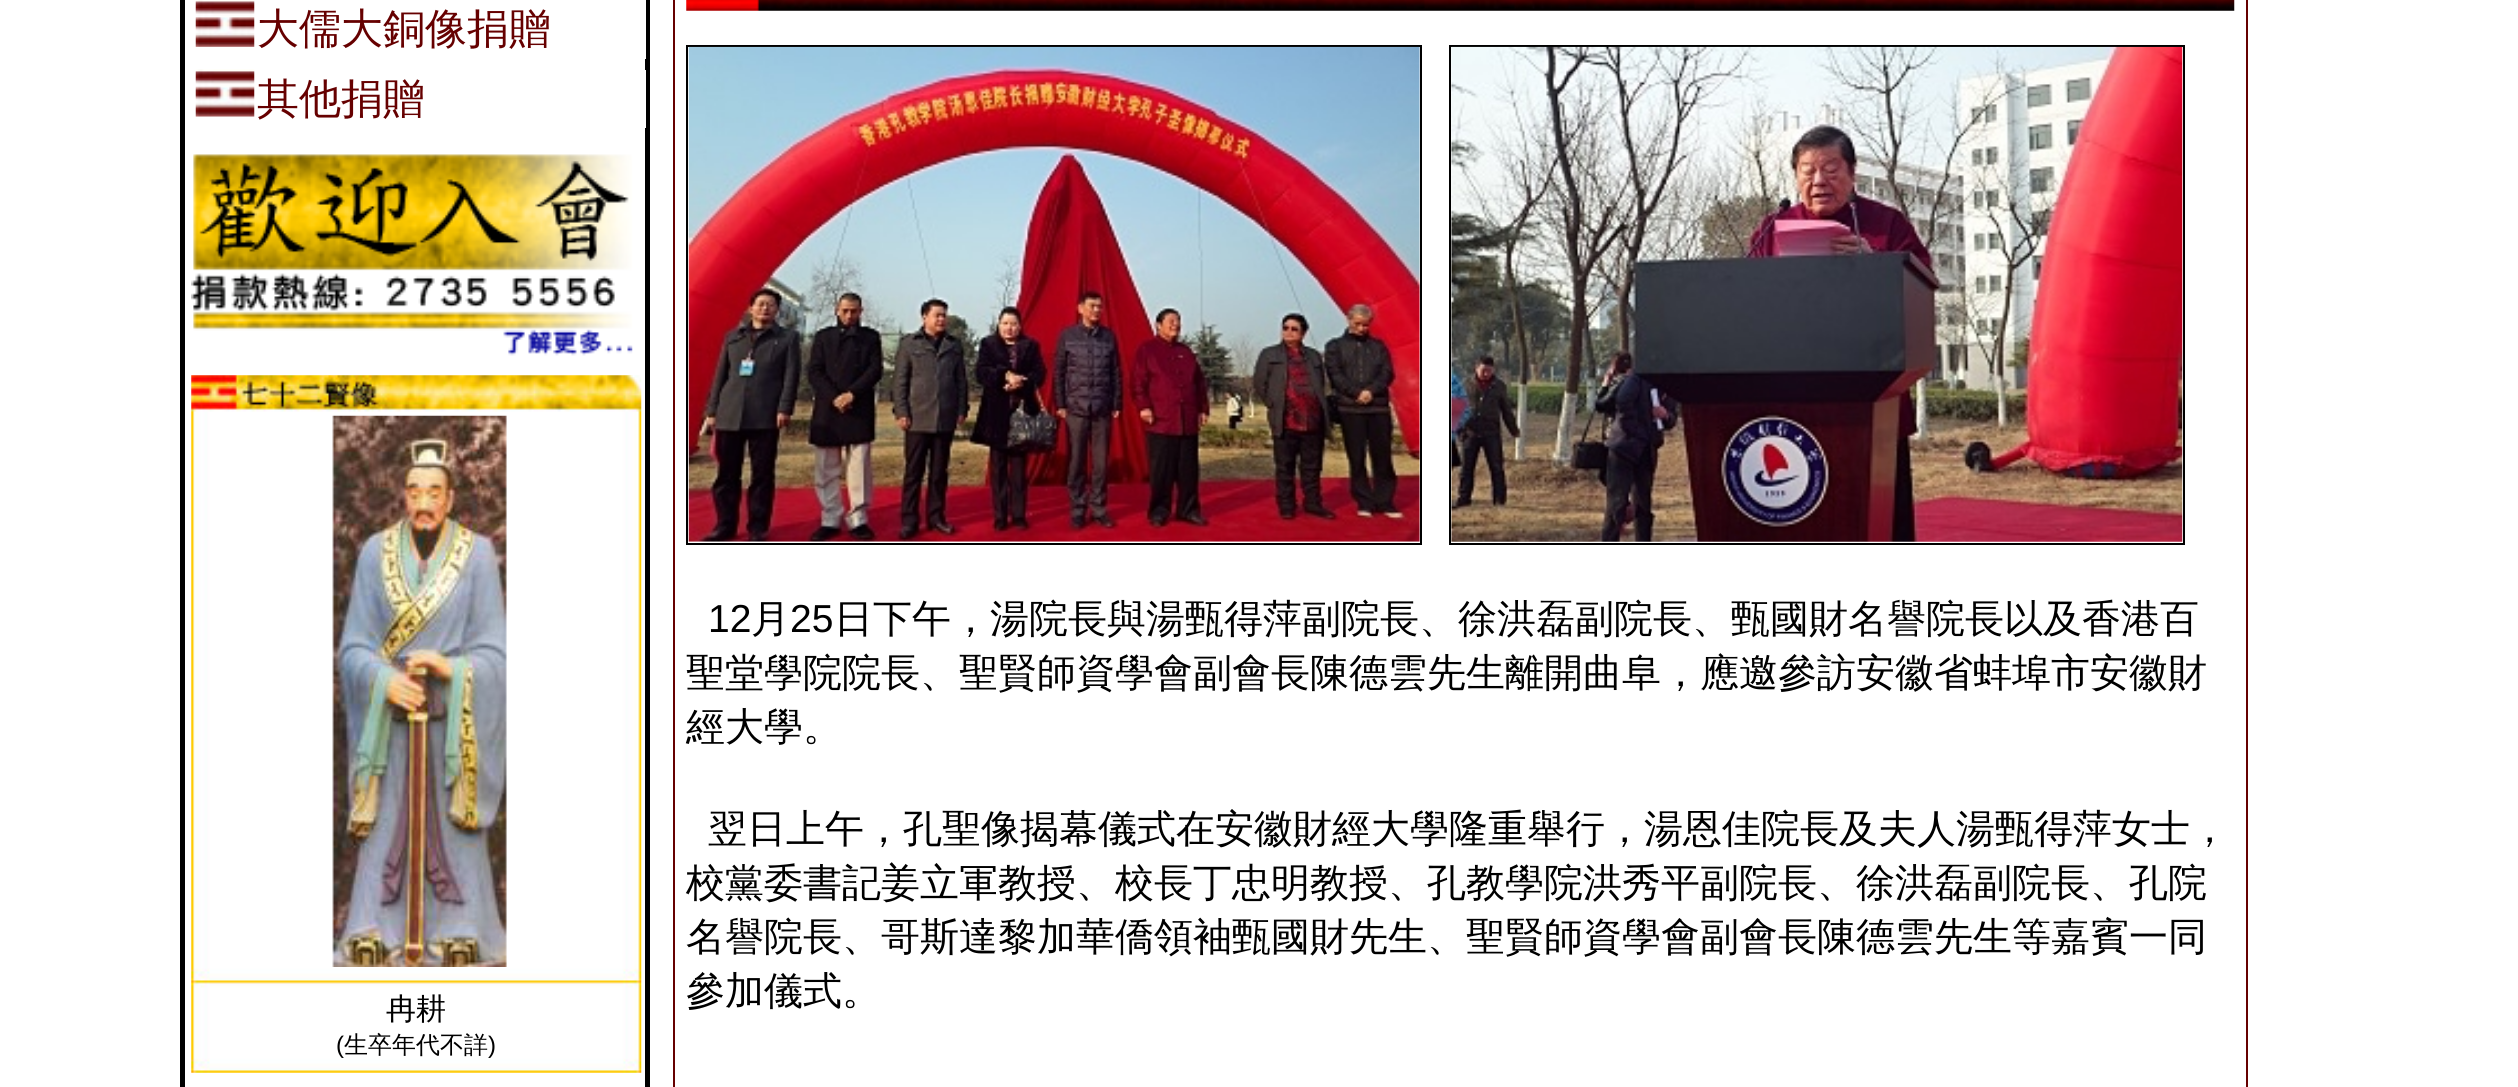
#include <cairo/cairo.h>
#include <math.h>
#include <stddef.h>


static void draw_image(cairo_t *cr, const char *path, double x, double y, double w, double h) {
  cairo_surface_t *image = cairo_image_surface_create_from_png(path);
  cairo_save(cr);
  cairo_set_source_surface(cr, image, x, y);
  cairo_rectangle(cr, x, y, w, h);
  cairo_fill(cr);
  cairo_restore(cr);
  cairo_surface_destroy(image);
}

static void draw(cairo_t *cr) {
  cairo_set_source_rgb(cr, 1, 1, 1);
  cairo_paint(cr);
  cairo_rectangle(cr, 182.5, -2.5, 465, 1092);
  cairo_set_source_rgb(cr, 0, 0, 0);
  cairo_set_line_width(cr, 5);
  cairo_stroke(cr);
  cairo_set_source_rgb(cr, 1, 1, 1);
  cairo_rectangle(cr, 645, 0, 1, 59);
  cairo_fill(cr);
  draw_image(cr, "images/1.png", 195, 0, 60, 47);
  cairo_rectangle(cr, 645, 70, 1, 58);
  cairo_fill(cr);
  draw_image(cr, "images/2.png", 195, 69, 60, 48);
  draw_image(cr, "images/3.png", 191, 154, 442, 202);
  draw_image(cr, "images/4.png", 191, 375, 451, 698);
  draw_image(cr, "images/5.png", 332, 415, 175, 552);
  cairo_rectangle(cr, 674, -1, 1573, 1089);
  cairo_set_source_rgb(cr, 102 / 255.0, 0, 0);
  cairo_set_line_width(cr, 2);
  cairo_stroke(cr);
  draw_image(cr, "images/6.png", 686, 0, 1549, 11);
  cairo_rectangle(cr, 687, 46, 734, 498);
  cairo_set_source_rgb(cr, 0, 0, 0);
  cairo_stroke(cr);
  draw_image(cr, "images/7.png", 688, 46, 732, 496);
  cairo_rectangle(cr, 1450, 46, 734, 498);
  cairo_stroke(cr);
  draw_image(cr, "images/8.png", 1451, 46, 732, 496);
  cairo_select_font_face(cr, "WenQuanYi Zen Hei Medium", CAIRO_FONT_SLANT_NORMAL, CAIRO_FONT_WEIGHT_NORMAL);
  cairo_set_font_size(cr, 42);
  cairo_set_source_rgb(cr, 102 / 255.0, 0, 0);
  cairo_move_to(cr, 257, 43);
  cairo_show_text(cr, "大儒大銅像捐贈");
  cairo_move_to(cr, 257, 113);
  cairo_show_text(cr, "其他捐贈");
  cairo_set_font_size(cr, 30);
  cairo_set_source_rgb(cr, 0, 0, 0);
  cairo_move_to(cr, 386, 1019);
  cairo_show_text(cr, "冉耕");
  cairo_select_font_face(cr, "Liberation Sans", CAIRO_FONT_SLANT_NORMAL, CAIRO_FONT_WEIGHT_NORMAL);
  cairo_set_font_size(cr, 24);
  cairo_move_to(cr, 336, 1053);
  cairo_show_text(cr, "(");
  cairo_select_font_face(cr, "WenQuanYi Zen Hei Medium", CAIRO_FONT_SLANT_NORMAL, CAIRO_FONT_WEIGHT_NORMAL);
  cairo_move_to(cr, 344, 1053);
  cairo_show_text(cr, "生卒年代不詳");
  cairo_select_font_face(cr, "Liberation Sans", CAIRO_FONT_SLANT_NORMAL, CAIRO_FONT_WEIGHT_NORMAL);
  cairo_move_to(cr, 488, 1053);
  cairo_show_text(cr, ")");
  cairo_set_font_size(cr, 39);
  cairo_move_to(cr, 708, 632);
  cairo_show_text(cr, "12");
  cairo_select_font_face(cr, "WenQuanYi Zen Hei Medium", CAIRO_FONT_SLANT_NORMAL, CAIRO_FONT_WEIGHT_NORMAL);
  cairo_move_to(cr, 751, 632);
  cairo_show_text(cr, "月");
  cairo_select_font_face(cr, "Liberation Sans", CAIRO_FONT_SLANT_NORMAL, CAIRO_FONT_WEIGHT_NORMAL);
  cairo_move_to(cr, 790, 632);
  cairo_show_text(cr, "25");
  cairo_select_font_face(cr, "WenQuanYi Zen Hei Medium", CAIRO_FONT_SLANT_NORMAL, CAIRO_FONT_WEIGHT_NORMAL);
  cairo_move_to(cr, 834, 632);
  cairo_show_text(cr, "日下午，湯院長與湯甄得萍副院長、徐洪磊副院長、甄國財名譽院長以及香港百");
  cairo_move_to(cr, 686, 686);
  cairo_show_text(cr, "聖堂學院院長、聖賢師資學會副會長陳德雲先生離開曲阜，應邀參訪安徽省蚌埠市安徽財");
  cairo_move_to(cr, 686, 740);
  cairo_show_text(cr, "經大學。");
  cairo_move_to(cr, 708, 842);
  cairo_show_text(cr, "翌日上午，孔聖像揭幕儀式在安徽財經大學隆重舉行，湯恩佳院長及夫人湯甄得萍女士，");
  cairo_move_to(cr, 686, 896);
  cairo_show_text(cr, "校黨委書記姜立軍教授、校長丁忠明教授、孔教學院洪秀平副院長、徐洪磊副院長、孔院");
  cairo_move_to(cr, 686, 950);
  cairo_show_text(cr, "名譽院長、哥斯達黎加華僑領袖甄國財先生、聖賢師資學會副會長陳德雲先生等嘉賓一同");
  cairo_move_to(cr, 686, 1004);
  cairo_show_text(cr, "參加儀式。");
}

int main(void) {
  cairo_surface_t *surface = cairo_image_surface_create(CAIRO_FORMAT_RGB24, 2518, 1087);
  cairo_t *cr = cairo_create(surface);
  cairo_font_options_t *options = cairo_font_options_create();
  cairo_font_options_set_hint_metrics(options, CAIRO_HINT_METRICS_OFF);
  cairo_font_options_set_hint_style(options, CAIRO_HINT_STYLE_NONE);
  cairo_set_font_options(cr, options);
  cairo_set_miter_limit(cr, 4);
  draw(cr);
  cairo_surface_write_to_png(surface, "out.png");
  cairo_font_options_destroy(options);
  cairo_destroy(cr);
  cairo_surface_destroy(surface);
  return 0;
}
